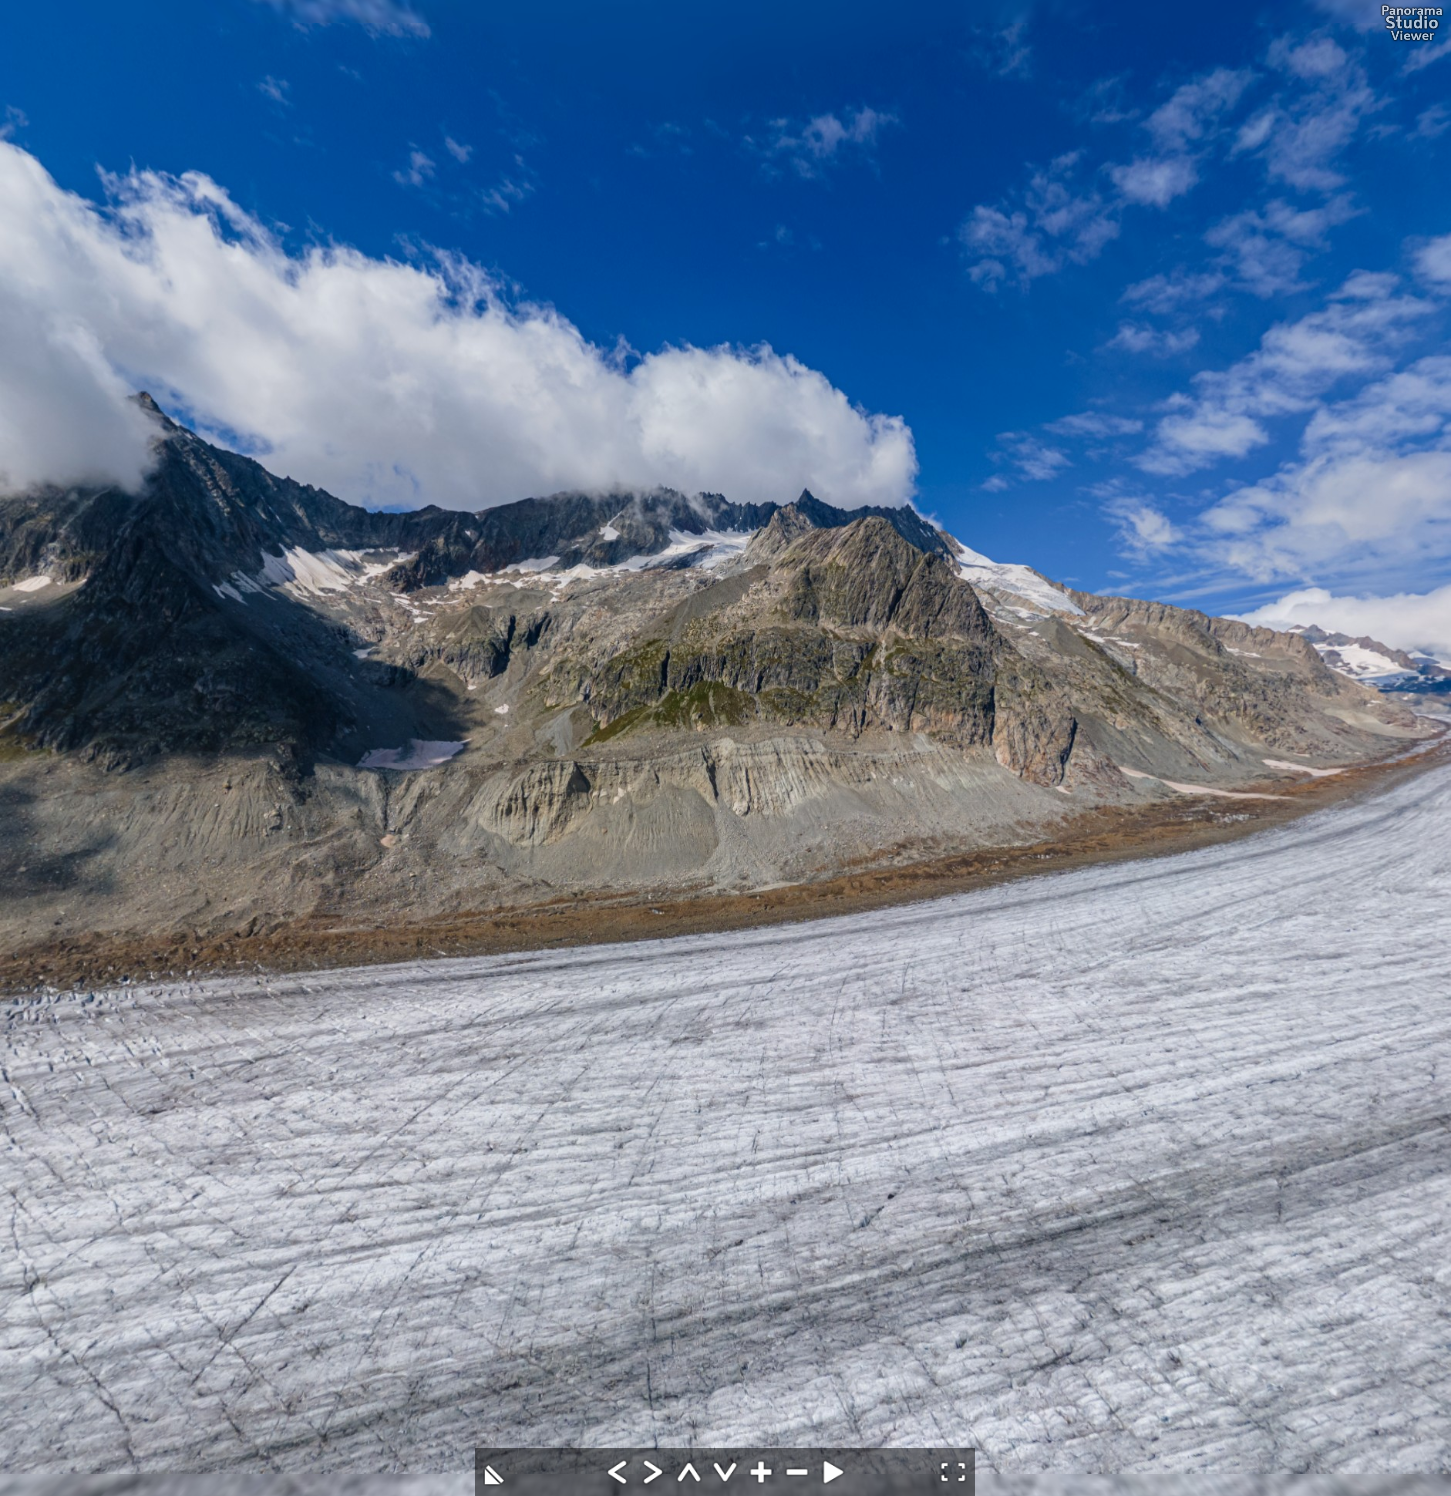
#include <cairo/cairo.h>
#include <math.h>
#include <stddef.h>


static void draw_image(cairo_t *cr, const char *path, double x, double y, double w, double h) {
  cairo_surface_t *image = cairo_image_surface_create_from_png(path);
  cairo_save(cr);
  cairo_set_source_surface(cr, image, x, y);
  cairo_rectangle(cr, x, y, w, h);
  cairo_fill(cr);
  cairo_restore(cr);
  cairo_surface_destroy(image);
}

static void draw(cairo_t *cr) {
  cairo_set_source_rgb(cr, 1, 1, 1);
  cairo_paint(cr);
  draw_image(cr, "images/1.png", 0, 0, 1451, 1496);
  draw_image(cr, "images/2.png", 1380, 3, 64, 39);
  cairo_set_source_rgba(cr, 0, 0, 0, 0.5);
  cairo_rectangle(cr, 475, 1448, 500, 48);
  cairo_fill(cr);
  draw_image(cr, "images/3.png", 483, 1464, 22, 22);
  draw_image(cr, "images/4.png", 606, 1459, 22, 27);
  draw_image(cr, "images/5.png", 642, 1458, 22, 27);
  draw_image(cr, "images/6.png", 676, 1461, 26, 22);
  draw_image(cr, "images/7.png", 712, 1461, 27, 22);
  draw_image(cr, "images/8.png", 748, 1459, 26, 26);
  draw_image(cr, "images/9.png", 784, 1467, 26, 10);
  draw_image(cr, "images/10.png", 821, 1459, 24, 26);
  draw_image(cr, "images/11.png", 939, 1461, 28, 22);
}

int main(void) {
  cairo_surface_t *surface = cairo_image_surface_create(CAIRO_FORMAT_RGB24, 1451, 1496);
  cairo_t *cr = cairo_create(surface);
  cairo_font_options_t *options = cairo_font_options_create();
  cairo_font_options_set_hint_metrics(options, CAIRO_HINT_METRICS_OFF);
  cairo_font_options_set_hint_style(options, CAIRO_HINT_STYLE_NONE);
  cairo_set_font_options(cr, options);
  cairo_set_miter_limit(cr, 4);
  draw(cr);
  cairo_surface_write_to_png(surface, "out.png");
  cairo_font_options_destroy(options);
  cairo_destroy(cr);
  cairo_surface_destroy(surface);
  return 0;
}
